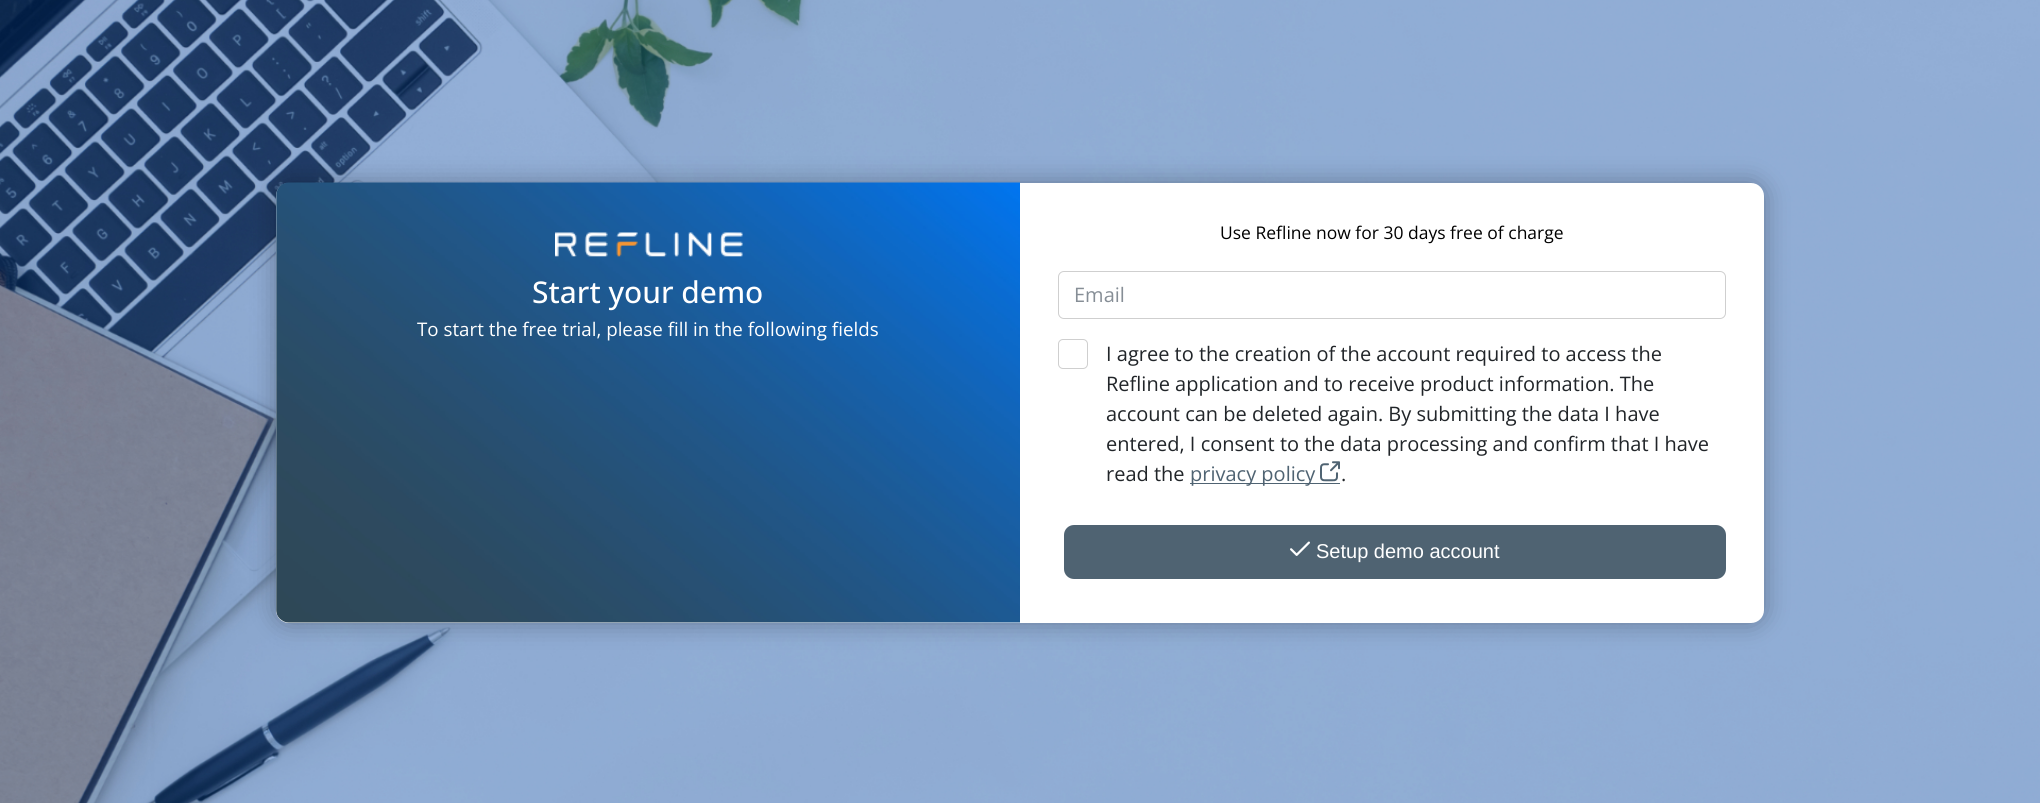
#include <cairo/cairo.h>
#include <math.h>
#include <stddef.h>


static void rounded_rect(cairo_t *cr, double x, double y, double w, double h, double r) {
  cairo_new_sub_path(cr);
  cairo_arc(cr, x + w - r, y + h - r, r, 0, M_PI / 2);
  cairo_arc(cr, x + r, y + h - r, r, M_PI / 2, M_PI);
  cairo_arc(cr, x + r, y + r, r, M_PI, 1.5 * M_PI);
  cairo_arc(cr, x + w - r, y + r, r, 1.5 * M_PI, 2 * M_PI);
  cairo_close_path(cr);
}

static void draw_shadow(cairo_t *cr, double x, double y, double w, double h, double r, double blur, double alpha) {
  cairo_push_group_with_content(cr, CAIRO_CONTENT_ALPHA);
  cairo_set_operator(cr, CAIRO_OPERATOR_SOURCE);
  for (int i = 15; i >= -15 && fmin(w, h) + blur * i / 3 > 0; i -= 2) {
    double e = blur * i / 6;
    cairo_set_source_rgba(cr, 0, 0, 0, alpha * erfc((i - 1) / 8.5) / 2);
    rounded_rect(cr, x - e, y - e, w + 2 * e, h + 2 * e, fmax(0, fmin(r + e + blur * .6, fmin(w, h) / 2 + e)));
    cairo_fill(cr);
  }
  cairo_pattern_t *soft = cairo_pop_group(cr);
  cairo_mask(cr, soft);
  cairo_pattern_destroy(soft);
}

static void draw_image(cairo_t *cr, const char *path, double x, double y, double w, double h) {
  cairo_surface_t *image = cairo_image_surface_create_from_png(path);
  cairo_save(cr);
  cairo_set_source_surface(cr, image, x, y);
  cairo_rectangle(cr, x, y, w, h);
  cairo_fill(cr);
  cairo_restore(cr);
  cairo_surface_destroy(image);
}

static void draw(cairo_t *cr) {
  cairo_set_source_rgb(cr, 1, 1, 1);
  cairo_paint(cr);
  draw_image(cr, "images/1.png", 0, 0, 2040, 803);
  cairo_set_source_rgb(cr, 0, 0, 0);
  draw_shadow(cr, 276, 183, 1488, 440, 13, 12.5, 0.3);
  cairo_set_source_rgb(cr, 1, 1, 1);
  rounded_rect(cr, 276, 183, 1488, 440, 13);
  cairo_fill(cr);
  draw_image(cr, "images/2.png", 276, 182, 744, 441);
  draw_image(cr, "images/3.png", 555, 232, 188, 25);
  rounded_rect(cr, 1058.5, 271.5, 667, 47, 5.5);
  cairo_set_source_rgb(cr, 207 / 255.0, 207 / 255.0, 207 / 255.0);
  cairo_set_line_width(cr, 1);
  cairo_stroke(cr);
  rounded_rect(cr, 1058.5, 339.5, 29, 29, 4.5);
  cairo_stroke(cr);
  draw_image(cr, "images/4.png", 1320, 461, 20, 21);
  cairo_set_source_rgb(cr, 79 / 255.0, 99 / 255.0, 114 / 255.0);
  cairo_rectangle(cr, 1190, 483, 150, 1);
  cairo_fill(cr);
  rounded_rect(cr, 1064, 525, 662, 54, 10);
  cairo_fill(cr);
  draw_image(cr, "images/5.png", 1290, 541, 20, 15);
  cairo_select_font_face(cr, "Open Sans Medium", CAIRO_FONT_SLANT_NORMAL, CAIRO_FONT_WEIGHT_NORMAL);
  cairo_set_font_size(cr, 30);
  cairo_set_source_rgb(cr, 1, 1, 1);
  cairo_move_to(cr, 532, 303);
  cairo_show_text(cr, "Start your demo");
  cairo_select_font_face(cr, "Open Sans", CAIRO_FONT_SLANT_NORMAL, CAIRO_FONT_WEIGHT_NORMAL);
  cairo_set_font_size(cr, 18.75);
  cairo_move_to(cr, 417, 336);
  cairo_show_text(cr, "To start the free trial, please fill in the following fields");
  cairo_set_font_size(cr, 17.5);
  cairo_set_source_rgb(cr, 0, 0, 0);
  cairo_move_to(cr, 1220, 239);
  cairo_show_text(cr, "Use Refline now for 30 days free of charge");
  cairo_set_font_size(cr, 20);
  cairo_set_source_rgb(cr, 134 / 255.0, 142 / 255.0, 150 / 255.0);
  cairo_move_to(cr, 1074, 302);
  cairo_show_text(cr, "Email");
  cairo_set_source_rgb(cr, 33 / 255.0, 37 / 255.0, 41 / 255.0);
  cairo_move_to(cr, 1106, 361);
  cairo_show_text(cr, "I agree to the creation of the account required to access the");
  cairo_move_to(cr, 1106, 391);
  cairo_show_text(cr, "Refline application and to receive product information. The");
  cairo_move_to(cr, 1106, 421);
  cairo_show_text(cr, "account can be deleted again. By submitting the data I have");
  cairo_move_to(cr, 1106, 451);
  cairo_show_text(cr, "entered, I consent to the data processing and confirm that I have");
  cairo_move_to(cr, 1106, 481);
  cairo_show_text(cr, "read the");
  cairo_set_source_rgb(cr, 79 / 255.0, 99 / 255.0, 114 / 255.0);
  cairo_move_to(cr, 1190, 481);
  cairo_show_text(cr, "privacy policy");
  cairo_set_source_rgb(cr, 33 / 255.0, 37 / 255.0, 41 / 255.0);
  cairo_move_to(cr, 1341, 481);
  cairo_show_text(cr, ".");
  cairo_select_font_face(cr, "Liberation Sans", CAIRO_FONT_SLANT_NORMAL, CAIRO_FONT_WEIGHT_NORMAL);
  cairo_set_source_rgb(cr, 1, 1, 1);
  cairo_move_to(cr, 1316, 558);
  cairo_show_text(cr, "Setup demo account");
}

int main(void) {
  cairo_surface_t *surface = cairo_image_surface_create(CAIRO_FORMAT_RGB24, 2040, 803);
  cairo_t *cr = cairo_create(surface);
  cairo_font_options_t *options = cairo_font_options_create();
  cairo_font_options_set_hint_metrics(options, CAIRO_HINT_METRICS_OFF);
  cairo_font_options_set_hint_style(options, CAIRO_HINT_STYLE_NONE);
  cairo_set_font_options(cr, options);
  cairo_set_miter_limit(cr, 4);
  draw(cr);
  cairo_surface_write_to_png(surface, "out.png");
  cairo_font_options_destroy(options);
  cairo_destroy(cr);
  cairo_surface_destroy(surface);
  return 0;
}
